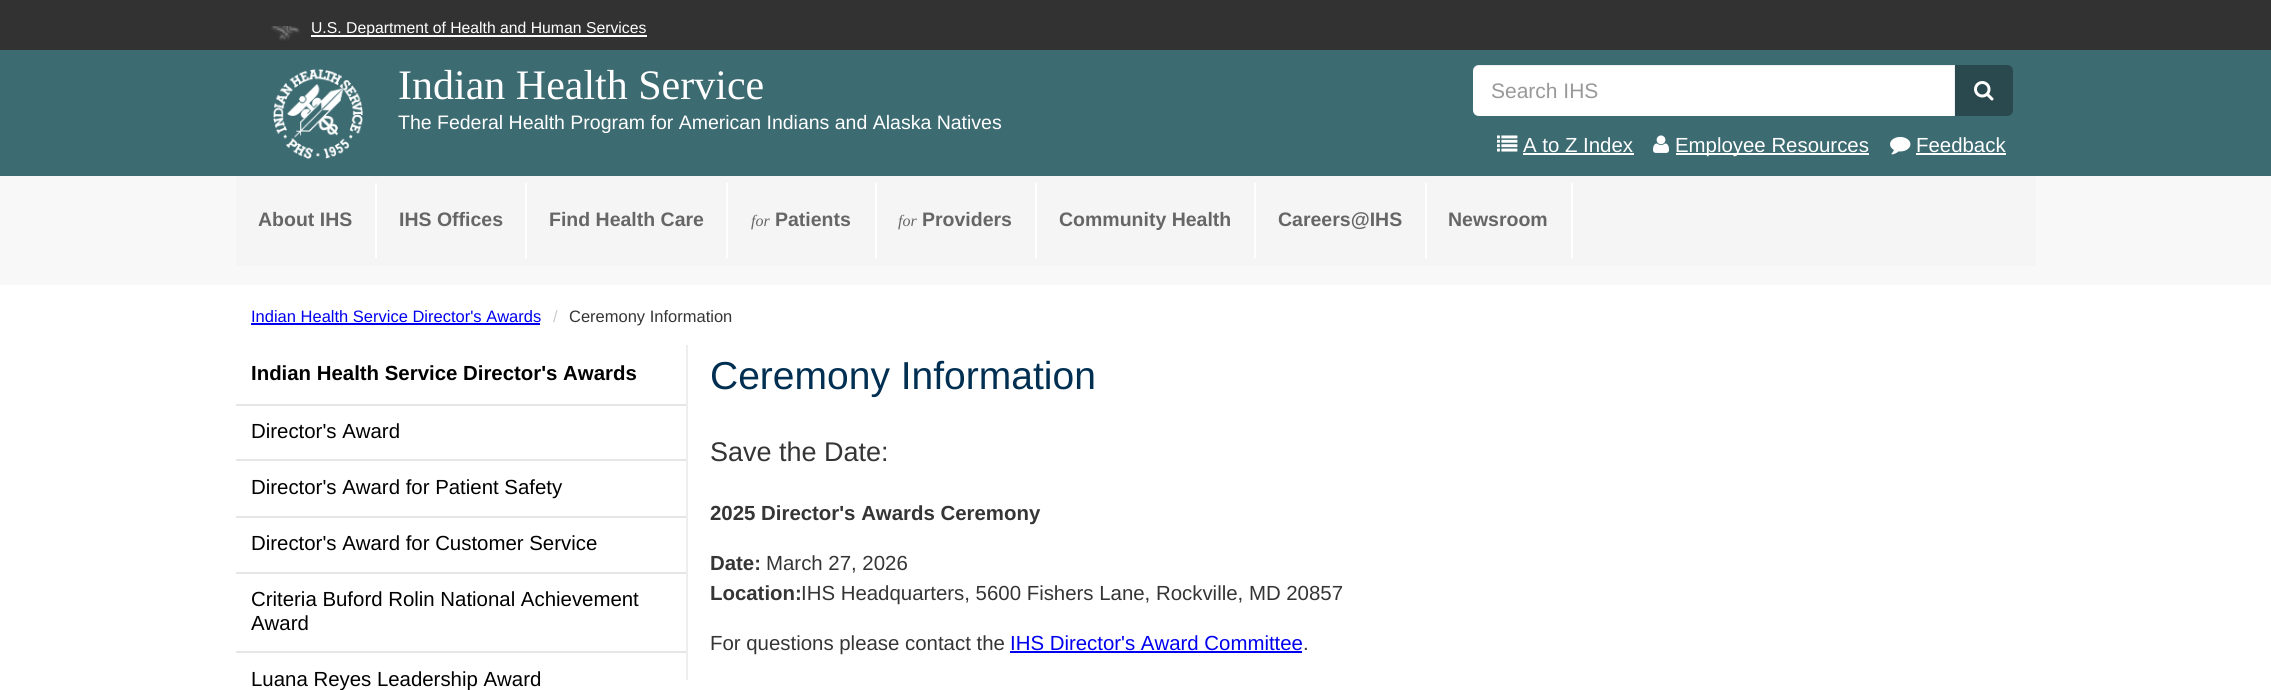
#include <cairo/cairo.h>
#include <math.h>
#include <stddef.h>


static void draw_image(cairo_t *cr, const char *path, double x, double y, double w, double h) {
  cairo_surface_t *image = cairo_image_surface_create_from_png(path);
  cairo_save(cr);
  cairo_set_source_surface(cr, image, x, y);
  cairo_rectangle(cr, x, y, w, h);
  cairo_fill(cr);
  cairo_restore(cr);
  cairo_surface_destroy(image);
}

static void draw(cairo_t *cr) {
  cairo_set_source_rgb(cr, 1, 1, 1);
  cairo_paint(cr);
  cairo_set_source_rgb(cr, 50 / 255.0, 50 / 255.0, 50 / 255.0);
  cairo_rectangle(cr, 0, 0, 2271, 50);
  cairo_fill(cr);
  draw_image(cr, "images/1.png", 271, 26, 29, 15);
  cairo_set_source_rgb(cr, 1, 1, 1);
  cairo_rectangle(cr, 311, 35, 336, 2);
  cairo_fill(cr);
  cairo_set_source_rgb(cr, 61 / 255.0, 107 / 255.0, 114 / 255.0);
  cairo_rectangle(cr, 0, 50, 2271, 126);
  cairo_fill(cr);
  draw_image(cr, "images/2.png", 273, 69, 90, 90);
  cairo_set_source_rgb(cr, 1, 1, 1);
  cairo_new_path(cr);
  cairo_move_to(cr, 1479, 65);
  cairo_line_to(cr, 1955, 65);
  cairo_line_to(cr, 1955, 116);
  cairo_line_to(cr, 1479, 116);
  cairo_curve_to(cr, 1475.5, 116, 1473, 113.5, 1473, 110);
  cairo_line_to(cr, 1473, 71);
  cairo_curve_to(cr, 1473, 67.5, 1475.5, 65, 1479, 65);
  cairo_close_path(cr);
  cairo_fill(cr);
  cairo_set_source_rgba(cr, 0, 0, 0, 0.07);
  cairo_new_path(cr);
  cairo_move_to(cr, 1479, 66);
  cairo_line_to(cr, 1954, 66);
  cairo_line_to(cr, 1954, 116);
  cairo_line_to(cr, 1955, 116);
  cairo_line_to(cr, 1955, 65);
  cairo_line_to(cr, 1479, 65);
  cairo_curve_to(cr, 1475, 65, 1473, 68, 1473, 72);
  cairo_curve_to(cr, 1473, 69, 1476, 66, 1479, 66);
  cairo_close_path(cr);
  cairo_fill(cr);
  cairo_set_source_rgb(cr, 41 / 255.0, 73 / 255.0, 78 / 255.0);
  cairo_new_path(cr);
  cairo_move_to(cr, 1955, 65);
  cairo_line_to(cr, 2007, 65);
  cairo_curve_to(cr, 2010.5, 65, 2013, 67.5, 2013, 71);
  cairo_line_to(cr, 2013, 110);
  cairo_curve_to(cr, 2013, 113.5, 2010.5, 116, 2007, 116);
  cairo_line_to(cr, 1955, 116);
  cairo_close_path(cr);
  cairo_fill(cr);
  draw_image(cr, "images/3.png", 1974, 81, 20, 20);
  draw_image(cr, "images/4.png", 1497, 135, 21, 17);
  cairo_set_source_rgb(cr, 1, 1, 1);
  cairo_rectangle(cr, 1523, 153, 111, 2);
  cairo_fill(cr);
  draw_image(cr, "images/5.png", 1653, 135, 16, 18);
  cairo_rectangle(cr, 1676, 153, 193, 2);
  cairo_fill(cr);
  draw_image(cr, "images/6.png", 1890, 136, 21, 19);
  cairo_rectangle(cr, 1916, 153, 90, 2);
  cairo_fill(cr);
  cairo_set_source_rgb(cr, 248 / 255.0, 248 / 255.0, 248 / 255.0);
  cairo_rectangle(cr, 0, 176, 2271, 109);
  cairo_fill(cr);
  cairo_set_source_rgb(cr, 245 / 255.0, 245 / 255.0, 245 / 255.0);
  cairo_rectangle(cr, 236, 176, 1800, 90);
  cairo_fill(cr);
  cairo_set_source_rgb(cr, 1, 1, 1);
  cairo_rectangle(cr, 375, 183, 2, 75);
  cairo_fill(cr);
  cairo_rectangle(cr, 525, 183, 2, 75);
  cairo_fill(cr);
  cairo_rectangle(cr, 726, 183, 2, 75);
  cairo_fill(cr);
  cairo_rectangle(cr, 875, 183, 2, 75);
  cairo_fill(cr);
  cairo_rectangle(cr, 1035, 183, 2, 75);
  cairo_fill(cr);
  cairo_rectangle(cr, 1254, 183, 2, 75);
  cairo_fill(cr);
  cairo_rectangle(cr, 1425, 183, 2, 75);
  cairo_fill(cr);
  cairo_rectangle(cr, 1571, 183, 2, 75);
  cairo_fill(cr);
  cairo_set_source_rgb(cr, 0, 0, 238 / 255.0);
  cairo_rectangle(cr, 251, 323, 289, 2);
  cairo_fill(cr);
  cairo_set_source_rgb(cr, 230 / 255.0, 230 / 255.0, 230 / 255.0);
  cairo_rectangle(cr, 236, 404, 450, 2);
  cairo_fill(cr);
  cairo_rectangle(cr, 236, 459, 450, 2);
  cairo_fill(cr);
  cairo_rectangle(cr, 236, 516, 450, 2);
  cairo_fill(cr);
  cairo_rectangle(cr, 236, 572, 450, 2);
  cairo_fill(cr);
  cairo_rectangle(cr, 236, 651, 450, 2);
  cairo_fill(cr);
  cairo_set_source_rgb(cr, 238 / 255.0, 238 / 255.0, 238 / 255.0);
  cairo_rectangle(cr, 686, 345, 2, 335);
  cairo_fill(cr);
  cairo_set_source_rgb(cr, 0, 0, 238 / 255.0);
  cairo_rectangle(cr, 1010, 651, 292, 2);
  cairo_fill(cr);
  cairo_select_font_face(cr, "Liberation Sans", CAIRO_FONT_SLANT_NORMAL, CAIRO_FONT_WEIGHT_NORMAL);
  cairo_set_font_size(cr, 15.75);
  cairo_set_source_rgb(cr, 1, 1, 1);
  cairo_move_to(cr, 311, 33);
  cairo_show_text(cr, "U.S. Department of Health and Human Services");
  cairo_select_font_face(cr, "Liberation Serif", CAIRO_FONT_SLANT_NORMAL, CAIRO_FONT_WEIGHT_NORMAL);
  cairo_set_font_size(cr, 42);
  cairo_move_to(cr, 398, 99);
  cairo_show_text(cr, "Indian Health Service");
  cairo_select_font_face(cr, "Liberation Sans", CAIRO_FONT_SLANT_NORMAL, CAIRO_FONT_WEIGHT_NORMAL);
  cairo_set_font_size(cr, 19.5);
  cairo_move_to(cr, 398, 129);
  cairo_show_text(cr, "The Federal Health Program for American Indians and Alaska Natives");
  cairo_set_font_size(cr, 21);
  cairo_set_source_rgb(cr, 153 / 255.0, 153 / 255.0, 153 / 255.0);
  cairo_move_to(cr, 1491, 98);
  cairo_show_text(cr, "Search IHS");
  cairo_set_font_size(cr, 20.4);
  cairo_set_source_rgb(cr, 1, 1, 1);
  cairo_move_to(cr, 1523, 152);
  cairo_show_text(cr, "A to Z Index");
  cairo_move_to(cr, 1675, 152);
  cairo_show_text(cr, "Employee Resources");
  cairo_move_to(cr, 1916, 152);
  cairo_show_text(cr, "Feedback");
  cairo_select_font_face(cr, "Liberation Sans", CAIRO_FONT_SLANT_NORMAL, CAIRO_FONT_WEIGHT_BOLD);
  cairo_set_font_size(cr, 19.5);
  cairo_set_source_rgb(cr, 102 / 255.0, 102 / 255.0, 102 / 255.0);
  cairo_move_to(cr, 258, 226);
  cairo_show_text(cr, "About IHS");
  cairo_move_to(cr, 399, 226);
  cairo_show_text(cr, "IHS Offices");
  cairo_move_to(cr, 549, 226);
  cairo_show_text(cr, "Find Health Care");
  cairo_select_font_face(cr, "Liberation Serif", CAIRO_FONT_SLANT_ITALIC, CAIRO_FONT_WEIGHT_NORMAL);
  cairo_set_font_size(cr, 16);
  cairo_move_to(cr, 751, 226);
  cairo_show_text(cr, "for");
  cairo_select_font_face(cr, "Liberation Sans", CAIRO_FONT_SLANT_NORMAL, CAIRO_FONT_WEIGHT_BOLD);
  cairo_set_font_size(cr, 19.5);
  cairo_move_to(cr, 775, 226);
  cairo_show_text(cr, "Patients");
  cairo_select_font_face(cr, "Liberation Serif", CAIRO_FONT_SLANT_ITALIC, CAIRO_FONT_WEIGHT_NORMAL);
  cairo_set_font_size(cr, 16);
  cairo_move_to(cr, 898, 226);
  cairo_show_text(cr, "for");
  cairo_select_font_face(cr, "Liberation Sans", CAIRO_FONT_SLANT_NORMAL, CAIRO_FONT_WEIGHT_BOLD);
  cairo_set_font_size(cr, 19.5);
  cairo_move_to(cr, 922, 226);
  cairo_show_text(cr, "Providers");
  cairo_move_to(cr, 1059, 226);
  cairo_show_text(cr, "Community Health");
  cairo_move_to(cr, 1278, 226);
  cairo_show_text(cr, "Careers@IHS");
  cairo_move_to(cr, 1448, 226);
  cairo_show_text(cr, "Newsroom");
  cairo_select_font_face(cr, "Liberation Sans", CAIRO_FONT_SLANT_NORMAL, CAIRO_FONT_WEIGHT_NORMAL);
  cairo_set_font_size(cr, 16.5);
  cairo_set_source_rgb(cr, 0, 0, 238 / 255.0);
  cairo_move_to(cr, 251, 322);
  cairo_show_text(cr, "Indian Health Service Director's Awards");
  cairo_set_source_rgb(cr, 204 / 255.0, 204 / 255.0, 204 / 255.0);
  cairo_move_to(cr, 553, 322);
  cairo_show_text(cr, "/");
  cairo_set_source_rgb(cr, 53 / 255.0, 53 / 255.0, 53 / 255.0);
  cairo_move_to(cr, 569, 322);
  cairo_show_text(cr, "Ceremony Information");
  cairo_select_font_face(cr, "Liberation Sans", CAIRO_FONT_SLANT_NORMAL, CAIRO_FONT_WEIGHT_BOLD);
  cairo_set_font_size(cr, 20.4);
  cairo_set_source_rgb(cr, 0, 0, 0);
  cairo_move_to(cr, 251, 380);
  cairo_show_text(cr, "Indian Health Service Director's Awards");
  cairo_select_font_face(cr, "Liberation Sans", CAIRO_FONT_SLANT_NORMAL, CAIRO_FONT_WEIGHT_NORMAL);
  cairo_move_to(cr, 251, 438);
  cairo_show_text(cr, "Director's Award");
  cairo_move_to(cr, 251, 494);
  cairo_show_text(cr, "Director's Award for Patient Safety");
  cairo_move_to(cr, 251, 550);
  cairo_show_text(cr, "Director's Award for Customer Service");
  cairo_move_to(cr, 251, 606);
  cairo_show_text(cr, "Criteria Buford Rolin National Achievement");
  cairo_move_to(cr, 251, 630);
  cairo_show_text(cr, "Award");
  cairo_move_to(cr, 251, 686);
  cairo_show_text(cr, "Luana Reyes Leadership Award");
  cairo_set_font_size(cr, 39);
  cairo_set_source_rgb(cr, 0, 47 / 255.0, 82 / 255.0);
  cairo_move_to(cr, 710, 389);
  cairo_show_text(cr, "Ceremony Information");
  cairo_set_font_size(cr, 27);
  cairo_set_source_rgb(cr, 53 / 255.0, 53 / 255.0, 53 / 255.0);
  cairo_move_to(cr, 710, 461);
  cairo_show_text(cr, "Save the Date:");
  cairo_select_font_face(cr, "Liberation Sans", CAIRO_FONT_SLANT_NORMAL, CAIRO_FONT_WEIGHT_BOLD);
  cairo_set_font_size(cr, 20.4);
  cairo_move_to(cr, 710, 520);
  cairo_show_text(cr, "2025 Director's Awards Ceremony");
  cairo_move_to(cr, 710, 570);
  cairo_show_text(cr, "Date:");
  cairo_select_font_face(cr, "Liberation Sans", CAIRO_FONT_SLANT_NORMAL, CAIRO_FONT_WEIGHT_NORMAL);
  cairo_move_to(cr, 766, 570);
  cairo_show_text(cr, "March 27, 2026");
  cairo_select_font_face(cr, "Liberation Sans", CAIRO_FONT_SLANT_NORMAL, CAIRO_FONT_WEIGHT_BOLD);
  cairo_move_to(cr, 710, 600);
  cairo_show_text(cr, "Location:");
  cairo_select_font_face(cr, "Liberation Sans", CAIRO_FONT_SLANT_NORMAL, CAIRO_FONT_WEIGHT_NORMAL);
  cairo_move_to(cr, 801, 600);
  cairo_show_text(cr, "IHS Headquarters, 5600 Fishers Lane, Rockville, MD 20857");
  cairo_move_to(cr, 710, 650);
  cairo_show_text(cr, "For questions please contact the");
  cairo_set_source_rgb(cr, 0, 0, 238 / 255.0);
  cairo_move_to(cr, 1010, 650);
  cairo_show_text(cr, "IHS Director's Award Committee");
  cairo_set_source_rgb(cr, 53 / 255.0, 53 / 255.0, 53 / 255.0);
  cairo_move_to(cr, 1303, 650);
  cairo_show_text(cr, ".");
}

int main(void) {
  cairo_surface_t *surface = cairo_image_surface_create(CAIRO_FORMAT_RGB24, 2271, 690);
  cairo_t *cr = cairo_create(surface);
  cairo_font_options_t *options = cairo_font_options_create();
  cairo_font_options_set_hint_metrics(options, CAIRO_HINT_METRICS_OFF);
  cairo_font_options_set_hint_style(options, CAIRO_HINT_STYLE_NONE);
  cairo_set_font_options(cr, options);
  cairo_set_miter_limit(cr, 4);
  draw(cr);
  cairo_surface_write_to_png(surface, "out.png");
  cairo_font_options_destroy(options);
  cairo_destroy(cr);
  cairo_surface_destroy(surface);
  return 0;
}
